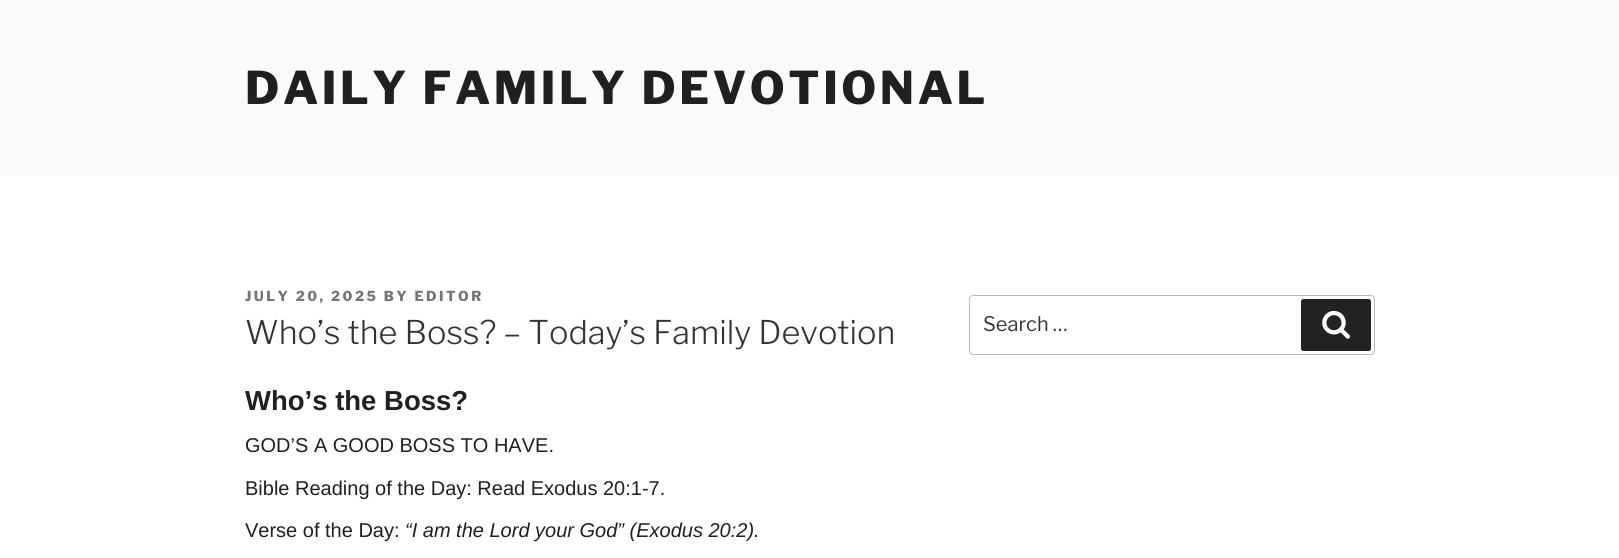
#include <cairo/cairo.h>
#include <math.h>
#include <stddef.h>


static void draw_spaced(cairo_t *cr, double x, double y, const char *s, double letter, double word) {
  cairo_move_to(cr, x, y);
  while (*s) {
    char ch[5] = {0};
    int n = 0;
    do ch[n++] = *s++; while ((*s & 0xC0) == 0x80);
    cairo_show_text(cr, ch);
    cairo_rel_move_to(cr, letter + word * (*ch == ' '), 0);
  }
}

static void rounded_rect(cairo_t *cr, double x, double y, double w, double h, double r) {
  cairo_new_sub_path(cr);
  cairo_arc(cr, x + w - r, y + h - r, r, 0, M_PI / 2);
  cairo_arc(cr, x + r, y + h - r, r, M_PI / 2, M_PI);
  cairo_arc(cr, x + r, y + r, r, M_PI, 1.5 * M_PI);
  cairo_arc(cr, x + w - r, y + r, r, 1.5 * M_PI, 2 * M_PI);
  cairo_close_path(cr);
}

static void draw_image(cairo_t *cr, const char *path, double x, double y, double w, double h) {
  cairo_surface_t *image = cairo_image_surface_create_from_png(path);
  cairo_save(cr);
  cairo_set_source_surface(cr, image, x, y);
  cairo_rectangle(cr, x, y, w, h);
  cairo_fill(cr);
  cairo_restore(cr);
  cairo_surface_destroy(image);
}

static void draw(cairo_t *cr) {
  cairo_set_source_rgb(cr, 1, 1, 1);
  cairo_paint(cr);
  cairo_set_source_rgb(cr, 250 / 255.0, 250 / 255.0, 250 / 255.0);
  cairo_rectangle(cr, 0, 0, 1619, 176);
  cairo_fill(cr);
  rounded_rect(cr, 969.5, 295.5, 405, 59, 3.5);
  cairo_set_source_rgb(cr, 187 / 255.0, 187 / 255.0, 187 / 255.0);
  cairo_set_line_width(cr, 1);
  cairo_stroke(cr);
  cairo_set_source_rgb(cr, 34 / 255.0, 34 / 255.0, 34 / 255.0);
  rounded_rect(cr, 1301, 299, 70, 52, 2.5);
  cairo_fill(cr);
  draw_image(cr, "images/1.png", 1322, 310, 28, 29);
  cairo_select_font_face(cr, "Libre Franklin Thin", CAIRO_FONT_SLANT_NORMAL, CAIRO_FONT_WEIGHT_NORMAL);
  cairo_set_font_size(cr, 45);
  cairo_set_source_rgb(cr, 32 / 255.0, 32 / 255.0, 32 / 255.0);
  draw_spaced(cr, 245, 104, "DAILY FAMILY DEVOTIONAL", 3.6, 0);
  cairo_set_font_size(cr, 13.75);
  cairo_set_source_rgb(cr, 118 / 255.0, 118 / 255.0, 118 / 255.0);
  draw_spaced(cr, 245, 301, "JULY 20, 2025 BY EDITOR", 2.5, 0);
  cairo_select_font_face(cr, "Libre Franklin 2 Thin", CAIRO_FONT_SLANT_NORMAL, CAIRO_FONT_WEIGHT_NORMAL);
  cairo_set_font_size(cr, 32.5);
  cairo_set_source_rgb(cr, 51 / 255.0, 51 / 255.0, 51 / 255.0);
  cairo_move_to(cr, 245, 344);
  cairo_show_text(cr, "Who’s the Boss? – Today’s Family Devotion");
  cairo_select_font_face(cr, "Liberation Sans", CAIRO_FONT_SLANT_NORMAL, CAIRO_FONT_WEIGHT_BOLD);
  cairo_set_font_size(cr, 27.5);
  cairo_set_source_rgb(cr, 32 / 255.0, 32 / 255.0, 32 / 255.0);
  cairo_move_to(cr, 245, 410);
  cairo_show_text(cr, "Who’s the Boss?");
  cairo_select_font_face(cr, "Liberation Sans", CAIRO_FONT_SLANT_NORMAL, CAIRO_FONT_WEIGHT_NORMAL);
  cairo_set_font_size(cr, 20);
  cairo_move_to(cr, 245, 452);
  cairo_show_text(cr, "GOD’S A GOOD BOSS TO HAVE.");
  cairo_move_to(cr, 245, 495);
  cairo_show_text(cr, "Bible Reading of the Day: Read Exodus 20:1-7.");
  cairo_move_to(cr, 245, 537);
  cairo_show_text(cr, "Verse of the Day:");
  cairo_select_font_face(cr, "Liberation Sans", CAIRO_FONT_SLANT_ITALIC, CAIRO_FONT_WEIGHT_NORMAL);
  cairo_move_to(cr, 405, 537);
  cairo_show_text(cr, "“I am the Lord your God” (Exodus 20:2).");
  cairo_select_font_face(cr, "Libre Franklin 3 Thin", CAIRO_FONT_SLANT_NORMAL, CAIRO_FONT_WEIGHT_NORMAL);
  cairo_set_source_rgb(cr, 51 / 255.0, 51 / 255.0, 51 / 255.0);
  cairo_move_to(cr, 983, 331);
  cairo_show_text(cr, "Search …");
}

int main(void) {
  cairo_surface_t *surface = cairo_image_surface_create(CAIRO_FORMAT_RGB24, 1619, 558);
  cairo_t *cr = cairo_create(surface);
  cairo_font_options_t *options = cairo_font_options_create();
  cairo_font_options_set_hint_metrics(options, CAIRO_HINT_METRICS_OFF);
  cairo_font_options_set_hint_style(options, CAIRO_HINT_STYLE_NONE);
  cairo_set_font_options(cr, options);
  cairo_set_miter_limit(cr, 4);
  draw(cr);
  cairo_surface_write_to_png(surface, "out.png");
  cairo_font_options_destroy(options);
  cairo_destroy(cr);
  cairo_surface_destroy(surface);
  return 0;
}
